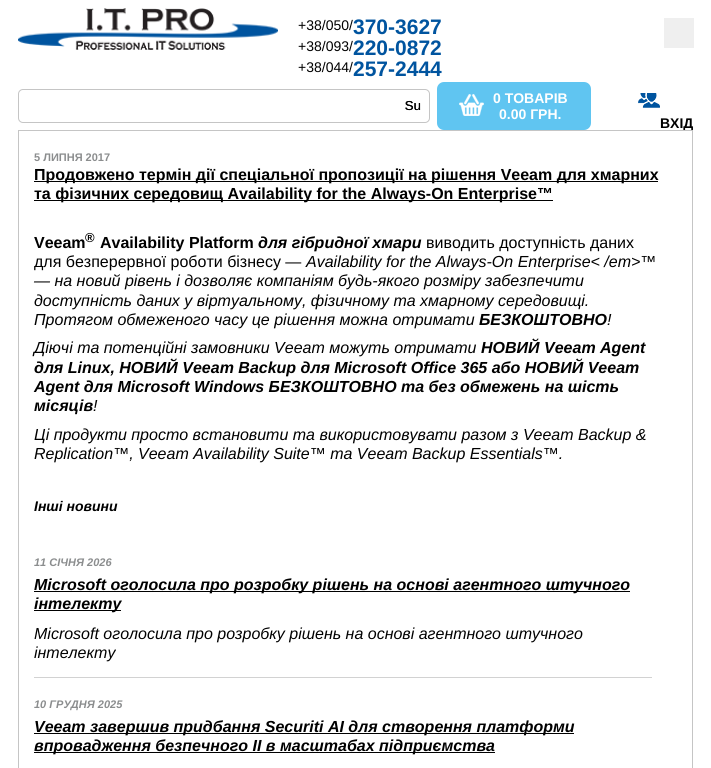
#include <cairo/cairo.h>
#include <math.h>
#include <stddef.h>


static void rounded_rect(cairo_t *cr, double x, double y, double w, double h, double r) {
  cairo_new_sub_path(cr);
  cairo_arc(cr, x + w - r, y + h - r, r, 0, M_PI / 2);
  cairo_arc(cr, x + r, y + h - r, r, M_PI / 2, M_PI);
  cairo_arc(cr, x + r, y + r, r, M_PI, 1.5 * M_PI);
  cairo_arc(cr, x + w - r, y + r, r, 1.5 * M_PI, 2 * M_PI);
  cairo_close_path(cr);
}

static void draw_image(cairo_t *cr, const char *path, double x, double y, double w, double h) {
  cairo_surface_t *image = cairo_image_surface_create_from_png(path);
  cairo_save(cr);
  cairo_set_source_surface(cr, image, x, y);
  cairo_rectangle(cr, x, y, w, h);
  cairo_fill(cr);
  cairo_restore(cr);
  cairo_surface_destroy(image);
}

static void draw(cairo_t *cr) {
  cairo_set_source_rgb(cr, 1, 1, 1);
  cairo_paint(cr);
  cairo_set_source_rgb(cr, 239 / 255.0, 239 / 255.0, 239 / 255.0);
  cairo_rectangle(cr, 664, 18, 30, 30);
  cairo_fill(cr);
  draw_image(cr, "images/1.png", 18, 8, 260, 42);
  rounded_rect(cr, 18.5, 89.5, 411, 33, 4.5);
  cairo_set_source_rgb(cr, 197 / 255.0, 197 / 255.0, 197 / 255.0);
  cairo_set_line_width(cr, 1);
  cairo_stroke(cr);
  draw_image(cr, "images/2.png", 405, 101, 15, 9);
  cairo_set_source_rgb(cr, 96 / 255.0, 197 / 255.0, 241 / 255.0);
  rounded_rect(cr, 437, 82, 154, 48, 7);
  cairo_fill(cr);
  draw_image(cr, "images/3.png", 459, 94, 25, 22);
  draw_image(cr, "images/4.png", 638, 93, 22, 15);
  cairo_select_font_face(cr, "Liberation Sans", CAIRO_FONT_SLANT_NORMAL, CAIRO_FONT_WEIGHT_NORMAL);
  cairo_set_font_size(cr, 14);
  cairo_set_source_rgb(cr, 0, 0, 0);
  cairo_move_to(cr, 298, 30);
  cairo_show_text(cr, "+38/050/");
  cairo_select_font_face(cr, "Liberation Sans", CAIRO_FONT_SLANT_NORMAL, CAIRO_FONT_WEIGHT_BOLD);
  cairo_set_font_size(cr, 21);
  cairo_set_source_rgb(cr, 0, 84 / 255.0, 159 / 255.0);
  cairo_move_to(cr, 353, 34);
  cairo_show_text(cr, "370-3627");
  cairo_select_font_face(cr, "Liberation Sans", CAIRO_FONT_SLANT_NORMAL, CAIRO_FONT_WEIGHT_NORMAL);
  cairo_set_font_size(cr, 14);
  cairo_set_source_rgb(cr, 0, 0, 0);
  cairo_move_to(cr, 298, 51);
  cairo_show_text(cr, "+38/093/");
  cairo_select_font_face(cr, "Liberation Sans", CAIRO_FONT_SLANT_NORMAL, CAIRO_FONT_WEIGHT_BOLD);
  cairo_set_font_size(cr, 21);
  cairo_set_source_rgb(cr, 0, 84 / 255.0, 159 / 255.0);
  cairo_move_to(cr, 353, 55);
  cairo_show_text(cr, "220-0872");
  cairo_select_font_face(cr, "Liberation Sans", CAIRO_FONT_SLANT_NORMAL, CAIRO_FONT_WEIGHT_NORMAL);
  cairo_set_font_size(cr, 14);
  cairo_set_source_rgb(cr, 0, 0, 0);
  cairo_move_to(cr, 298, 72);
  cairo_show_text(cr, "+38/044/");
  cairo_select_font_face(cr, "Liberation Sans", CAIRO_FONT_SLANT_NORMAL, CAIRO_FONT_WEIGHT_BOLD);
  cairo_set_font_size(cr, 21);
  cairo_set_source_rgb(cr, 0, 84 / 255.0, 159 / 255.0);
  cairo_move_to(cr, 353, 76);
  cairo_show_text(cr, "257-2444");
  cairo_select_font_face(cr, "Liberation Sans", CAIRO_FONT_SLANT_NORMAL, CAIRO_FONT_WEIGHT_NORMAL);
  cairo_set_font_size(cr, 13);
  cairo_set_source_rgb(cr, 0, 0, 0);
  cairo_move_to(cr, 405, 110);
  cairo_show_text(cr, "Su");
  cairo_select_font_face(cr, "Liberation Sans", CAIRO_FONT_SLANT_NORMAL, CAIRO_FONT_WEIGHT_BOLD);
  cairo_set_font_size(cr, 14);
  cairo_set_source_rgb(cr, 1, 1, 1);
  cairo_move_to(cr, 493, 103);
  cairo_show_text(cr, "0 ТОВАРІВ");
  cairo_move_to(cr, 499, 119);
  cairo_show_text(cr, "0.00 ГРН.");
  cairo_set_source_rgb(cr, 0, 0, 0);
  cairo_move_to(cr, 660, 128);
  cairo_show_text(cr, "ВХІД");
  cairo_rectangle(cr, 18.5, 130.5, 674, 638);
  cairo_set_source_rgb(cr, 197 / 255.0, 197 / 255.0, 197 / 255.0);
  cairo_stroke(cr);
  cairo_set_font_size(cr, 11);
  cairo_set_source_rgb(cr, 139 / 255.0, 141 / 255.0, 142 / 255.0);
  cairo_move_to(cr, 34, 161);
  cairo_show_text(cr, "5 ЛИПНЯ 2017");
  cairo_set_source_rgb(cr, 0, 0, 0);
  cairo_rectangle(cr, 34, 181, 624, 1);
  cairo_fill(cr);
  cairo_set_font_size(cr, 16);
  cairo_move_to(cr, 34, 180);
  cairo_show_text(cr, "Продовжено термін дії спеціальної пропозиції на рішення Veeam для хмарних");
  cairo_rectangle(cr, 34, 200, 519, 1);
  cairo_fill(cr);
  cairo_move_to(cr, 34, 199);
  cairo_show_text(cr, "та фізичних середовищ Availability for the Always-On Enterprise™");
  cairo_move_to(cr, 34, 248);
  cairo_show_text(cr, "Veeam");
  cairo_set_font_size(cr, 13);
  cairo_move_to(cr, 85, 242);
  cairo_show_text(cr, "®");
  cairo_set_font_size(cr, 16);
  cairo_move_to(cr, 100, 248);
  cairo_show_text(cr, "Availability Platform");
  cairo_select_font_face(cr, "Liberation Sans", CAIRO_FONT_SLANT_ITALIC, CAIRO_FONT_WEIGHT_BOLD);
  cairo_move_to(cr, 258, 248);
  cairo_show_text(cr, "для гібридної хмари");
  cairo_select_font_face(cr, "Liberation Sans", CAIRO_FONT_SLANT_NORMAL, CAIRO_FONT_WEIGHT_NORMAL);
  cairo_move_to(cr, 426, 248);
  cairo_show_text(cr, "виводить доступність даних");
  cairo_move_to(cr, 34, 267);
  cairo_show_text(cr, "для безперервної роботи бізнесу —");
  cairo_select_font_face(cr, "Liberation Sans", CAIRO_FONT_SLANT_ITALIC, CAIRO_FONT_WEIGHT_NORMAL);
  cairo_move_to(cr, 306, 267);
  cairo_show_text(cr, "Availability for the Always-On Enterprise< /em>™");
  cairo_move_to(cr, 34, 286);
  cairo_show_text(cr, "— на новий рівень і дозволяє компаніям будь-якого розміру забезпечити");
  cairo_move_to(cr, 34, 306);
  cairo_show_text(cr, "доступність даних у віртуальному, фізичному та хмарному середовищі.");
  cairo_move_to(cr, 34, 325);
  cairo_show_text(cr, "Протягом обмеженого часу це рішення можна отримати");
  cairo_select_font_face(cr, "Liberation Sans", CAIRO_FONT_SLANT_ITALIC, CAIRO_FONT_WEIGHT_BOLD);
  cairo_move_to(cr, 479, 325);
  cairo_show_text(cr, "БЕЗКОШТОВНО");
  cairo_select_font_face(cr, "Liberation Sans", CAIRO_FONT_SLANT_ITALIC, CAIRO_FONT_WEIGHT_NORMAL);
  cairo_move_to(cr, 607, 325);
  cairo_show_text(cr, "!");
  cairo_move_to(cr, 34, 353);
  cairo_show_text(cr, "Діючі та потенційні замовники Veeam можуть отримати");
  cairo_select_font_face(cr, "Liberation Sans", CAIRO_FONT_SLANT_ITALIC, CAIRO_FONT_WEIGHT_BOLD);
  cairo_move_to(cr, 481, 353);
  cairo_show_text(cr, "НОВИЙ Veeam Agent");
  cairo_move_to(cr, 34, 373);
  cairo_show_text(cr, "для Linux, НОВИЙ Veeam Backup для Microsoft Office 365 або НОВИЙ Veeam");
  cairo_move_to(cr, 34, 392);
  cairo_show_text(cr, "Agent для Microsoft Windows БЕЗКОШТОВНО та без обмежень на шість");
  cairo_move_to(cr, 34, 411);
  cairo_show_text(cr, "місяців");
  cairo_select_font_face(cr, "Liberation Sans", CAIRO_FONT_SLANT_ITALIC, CAIRO_FONT_WEIGHT_NORMAL);
  cairo_move_to(cr, 93, 411);
  cairo_show_text(cr, "!");
  cairo_move_to(cr, 34, 440);
  cairo_show_text(cr, "Ці продукти просто встановити та використовувати разом з Veeam Backup &");
  cairo_move_to(cr, 34, 459);
  cairo_show_text(cr, "Replication™, Veeam Availability Suite™ та Veeam Backup Essentials™.");
  cairo_select_font_face(cr, "Liberation Sans", CAIRO_FONT_SLANT_ITALIC, CAIRO_FONT_WEIGHT_BOLD);
  cairo_set_font_size(cr, 14);
  cairo_move_to(cr, 34, 511);
  cairo_show_text(cr, "Інші новини");
  cairo_set_source_rgb(cr, 210 / 255.0, 210 / 255.0, 210 / 255.0);
  cairo_rectangle(cr, 34, 677, 618, 1);
  cairo_fill(cr);
  cairo_set_font_size(cr, 11);
  cairo_set_source_rgb(cr, 139 / 255.0, 141 / 255.0, 142 / 255.0);
  cairo_move_to(cr, 34, 566);
  cairo_show_text(cr, "11 СІЧНЯ 2026");
  cairo_set_source_rgb(cr, 0, 0, 0);
  cairo_rectangle(cr, 34, 591, 596, 1);
  cairo_fill(cr);
  cairo_set_font_size(cr, 16);
  cairo_move_to(cr, 34, 590);
  cairo_show_text(cr, "Microsoft оголосила про розробку рішень на основі агентного штучного");
  cairo_rectangle(cr, 34, 610, 87, 1);
  cairo_fill(cr);
  cairo_move_to(cr, 34, 609);
  cairo_show_text(cr, "інтелекту");
  cairo_select_font_face(cr, "Liberation Sans", CAIRO_FONT_SLANT_ITALIC, CAIRO_FONT_WEIGHT_NORMAL);
  cairo_move_to(cr, 34, 639);
  cairo_show_text(cr, "Microsoft оголосила про розробку рішень на основі агентного штучного");
  cairo_move_to(cr, 34, 658);
  cairo_show_text(cr, "інтелекту");
  cairo_select_font_face(cr, "Liberation Sans", CAIRO_FONT_SLANT_ITALIC, CAIRO_FONT_WEIGHT_BOLD);
  cairo_set_font_size(cr, 11);
  cairo_set_source_rgb(cr, 139 / 255.0, 141 / 255.0, 142 / 255.0);
  cairo_move_to(cr, 34, 708);
  cairo_show_text(cr, "10 ГРУДНЯ 2025");
  cairo_set_source_rgb(cr, 0, 0, 0);
  cairo_rectangle(cr, 34, 733, 540, 1);
  cairo_fill(cr);
  cairo_set_font_size(cr, 16);
  cairo_move_to(cr, 34, 732);
  cairo_show_text(cr, "Veeam завершив придбання Securiti AI для створення платформи");
  cairo_rectangle(cr, 34, 752, 461, 1);
  cairo_fill(cr);
  cairo_move_to(cr, 34, 751);
  cairo_show_text(cr, "впровадження безпечного ІІ в масштабах підприємства");
}

int main(void) {
  cairo_surface_t *surface = cairo_image_surface_create(CAIRO_FORMAT_RGB24, 711, 768);
  cairo_t *cr = cairo_create(surface);
  cairo_font_options_t *options = cairo_font_options_create();
  cairo_font_options_set_hint_metrics(options, CAIRO_HINT_METRICS_OFF);
  cairo_font_options_set_hint_style(options, CAIRO_HINT_STYLE_NONE);
  cairo_set_font_options(cr, options);
  cairo_set_miter_limit(cr, 4);
  draw(cr);
  cairo_surface_write_to_png(surface, "out.png");
  cairo_font_options_destroy(options);
  cairo_destroy(cr);
  cairo_surface_destroy(surface);
  return 0;
}
